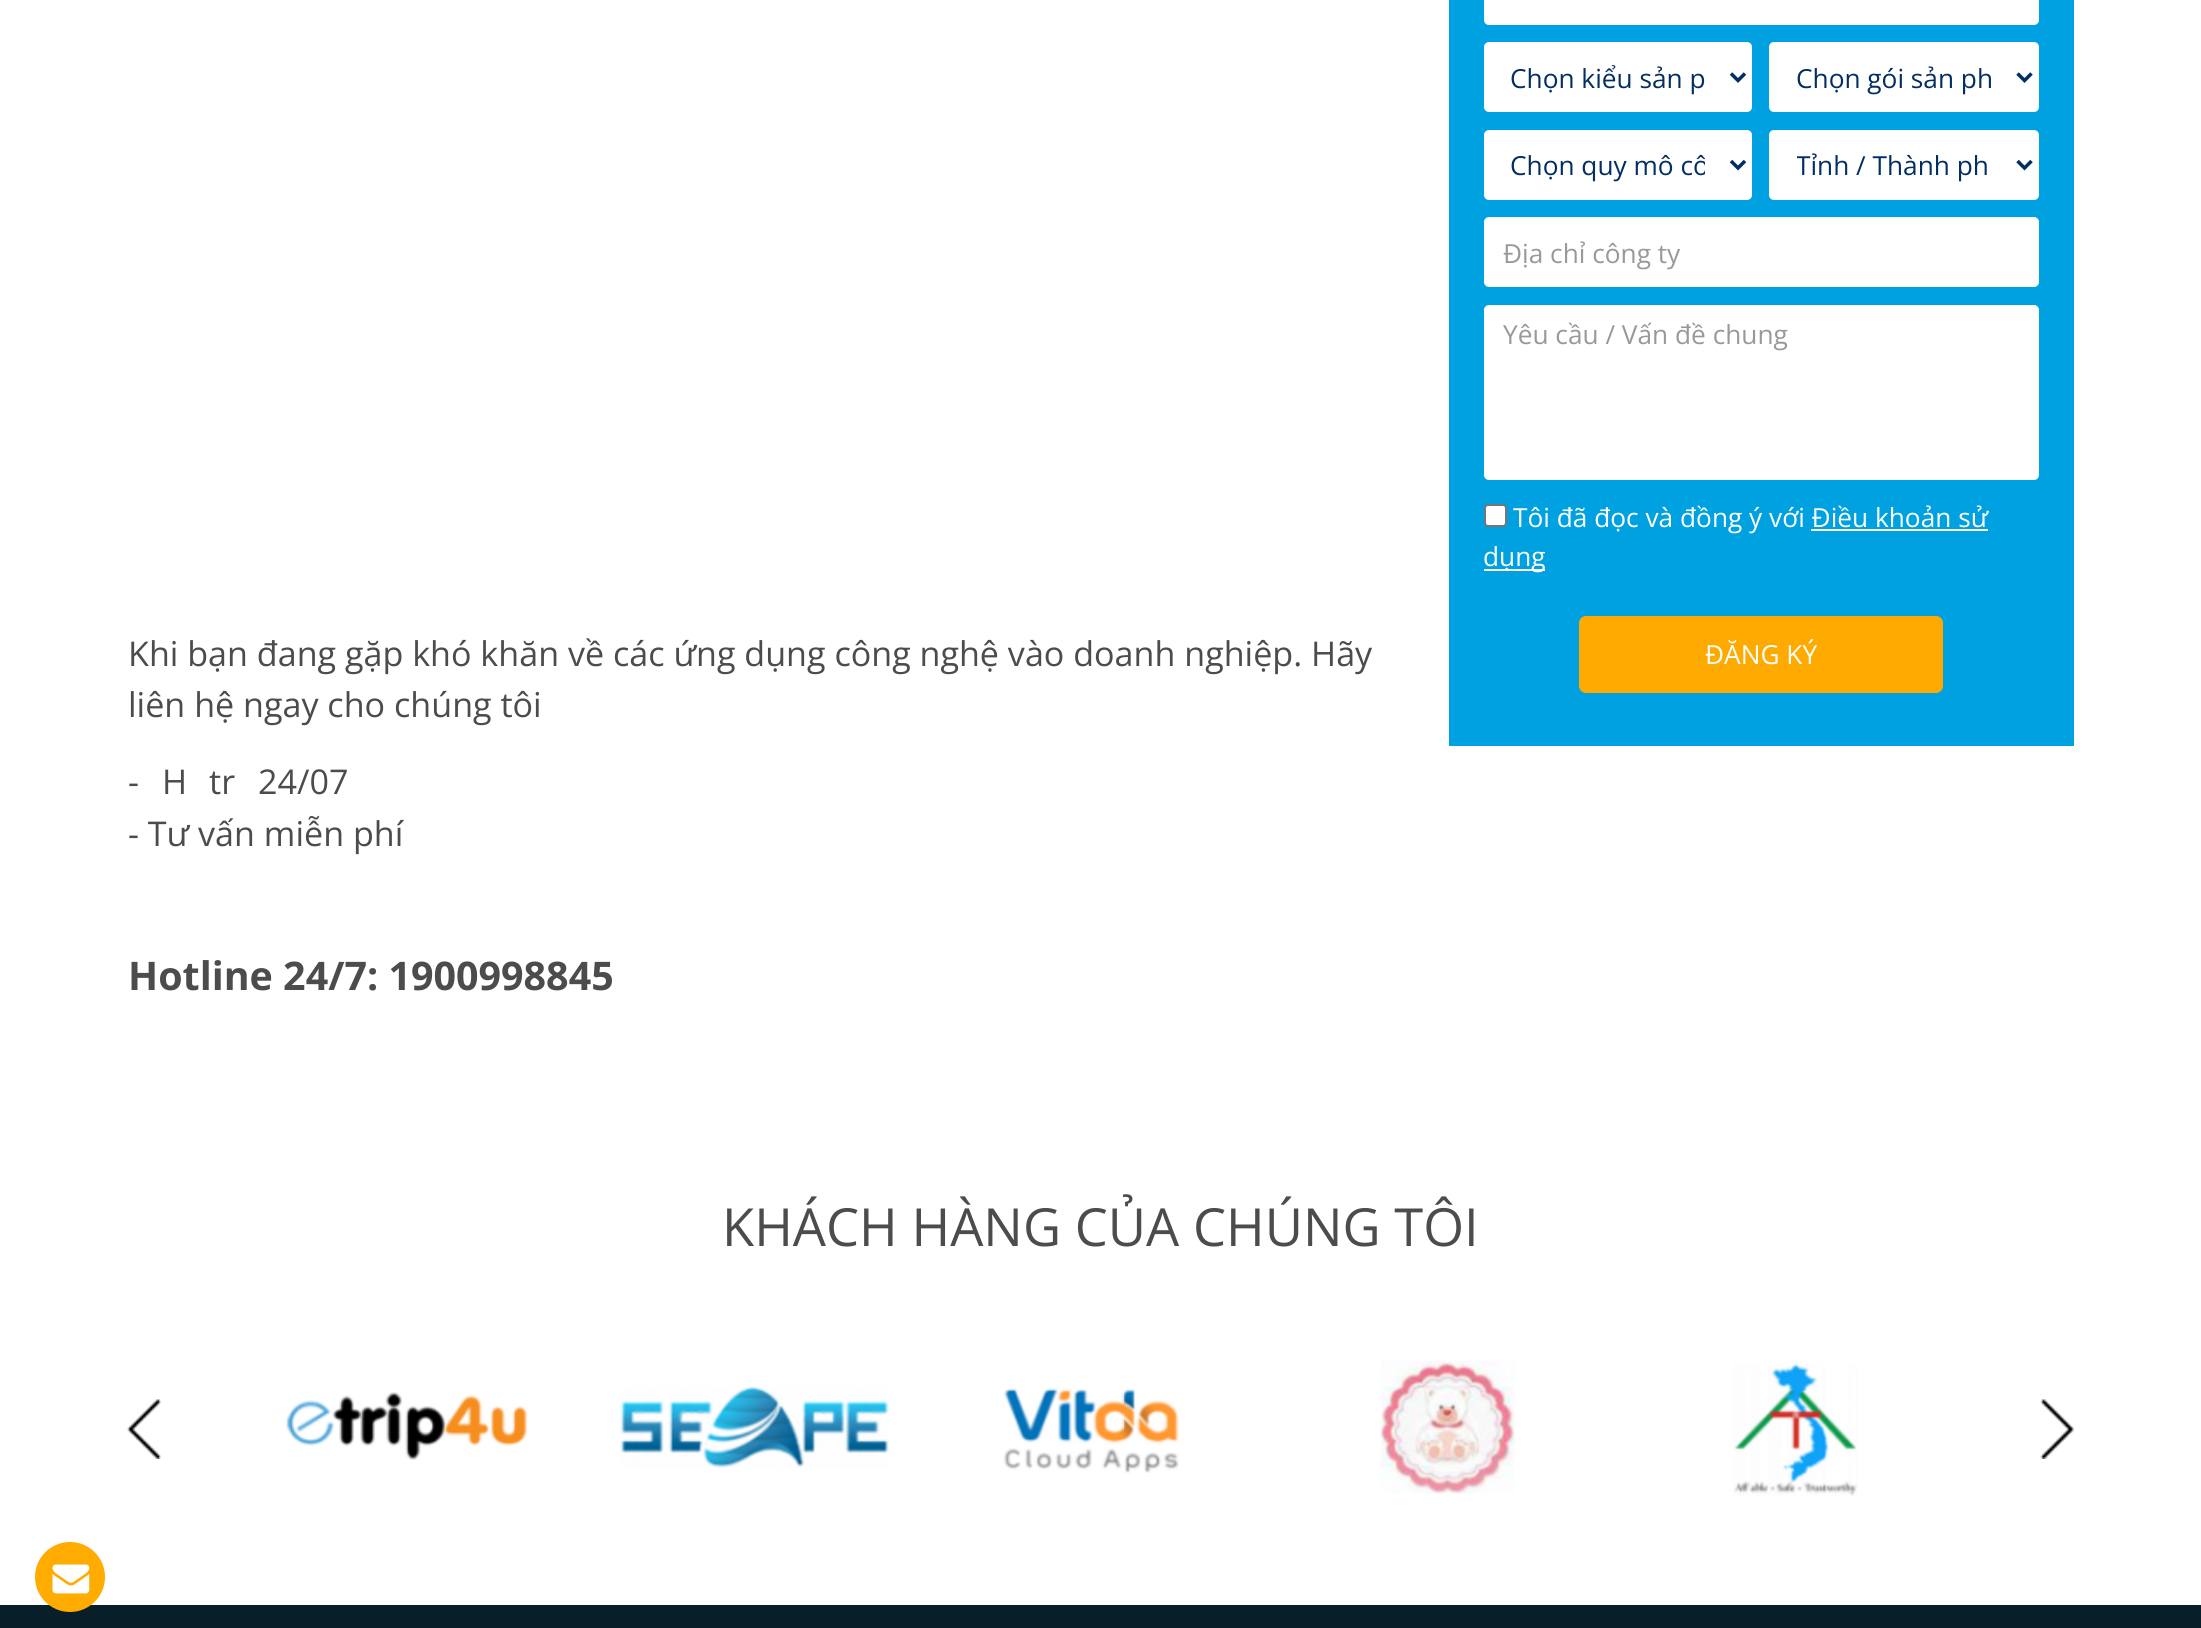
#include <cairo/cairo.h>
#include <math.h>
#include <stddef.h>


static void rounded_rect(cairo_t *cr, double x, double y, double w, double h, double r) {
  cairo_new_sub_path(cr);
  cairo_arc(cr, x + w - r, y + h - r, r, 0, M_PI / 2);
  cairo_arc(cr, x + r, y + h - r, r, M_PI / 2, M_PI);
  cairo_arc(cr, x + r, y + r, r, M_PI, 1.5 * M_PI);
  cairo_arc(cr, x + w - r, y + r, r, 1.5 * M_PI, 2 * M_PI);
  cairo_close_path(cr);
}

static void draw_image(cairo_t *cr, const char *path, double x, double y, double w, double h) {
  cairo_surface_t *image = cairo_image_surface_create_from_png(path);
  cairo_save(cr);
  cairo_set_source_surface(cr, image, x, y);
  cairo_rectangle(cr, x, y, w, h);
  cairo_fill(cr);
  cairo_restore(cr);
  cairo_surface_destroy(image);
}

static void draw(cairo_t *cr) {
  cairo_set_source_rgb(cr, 1, 1, 1);
  cairo_paint(cr);
  cairo_set_source_rgb(cr, 0, 161 / 255.0, 224 / 255.0);
  cairo_rectangle(cr, 1449, 0, 625, 746);
  cairo_fill(cr);
  cairo_set_source_rgb(cr, 1, 1, 1);
  rounded_rect(cr, 1484, -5, 555, 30, 5);
  cairo_fill(cr);
  rounded_rect(cr, 1484, 42, 268, 70, 5);
  cairo_fill(cr);
  cairo_new_path(cr);
  cairo_move_to(cr, 1731, 73.5);
  cairo_line_to(cr, 1738, 80.5);
  cairo_line_to(cr, 1745, 73.5);
  cairo_set_source_rgb(cr, 3 / 255.0, 46 / 255.0, 97 / 255.0);
  cairo_set_line_width(cr, 3.5);
  cairo_stroke(cr);
  cairo_set_source_rgb(cr, 1, 1, 1);
  rounded_rect(cr, 1769, 42, 270, 70, 5);
  cairo_fill(cr);
  cairo_new_path(cr);
  cairo_move_to(cr, 2017.5, 73.5);
  cairo_line_to(cr, 2024.5, 80.5);
  cairo_line_to(cr, 2031.5, 73.5);
  cairo_set_source_rgb(cr, 3 / 255.0, 46 / 255.0, 97 / 255.0);
  cairo_stroke(cr);
  cairo_set_source_rgb(cr, 1, 1, 1);
  rounded_rect(cr, 1484, 130, 268, 70, 5);
  cairo_fill(cr);
  cairo_new_path(cr);
  cairo_move_to(cr, 1731, 161);
  cairo_line_to(cr, 1738, 168);
  cairo_line_to(cr, 1745, 161);
  cairo_set_source_rgb(cr, 3 / 255.0, 46 / 255.0, 97 / 255.0);
  cairo_stroke(cr);
  cairo_set_source_rgb(cr, 1, 1, 1);
  rounded_rect(cr, 1769, 130, 270, 70, 5);
  cairo_fill(cr);
  cairo_new_path(cr);
  cairo_move_to(cr, 2017.5, 161);
  cairo_line_to(cr, 2024.5, 168);
  cairo_line_to(cr, 2031.5, 161);
  cairo_set_source_rgb(cr, 3 / 255.0, 46 / 255.0, 97 / 255.0);
  cairo_stroke(cr);
  cairo_set_source_rgb(cr, 1, 1, 1);
  rounded_rect(cr, 1484, 217, 555, 70, 5);
  cairo_fill(cr);
  rounded_rect(cr, 1484, 305, 555, 175, 5);
  cairo_fill(cr);
  rounded_rect(cr, 1485, 505, 21, 21, 3);
  cairo_fill_preserve(cr);
  cairo_set_source_rgb(cr, 118 / 255.0, 118 / 255.0, 118 / 255.0);
  cairo_set_line_width(cr, 2);
  cairo_stroke(cr);
  cairo_set_source_rgb(cr, 1, 1, 1);
  cairo_rectangle(cr, 1811, 529, 177, 2);
  cairo_fill(cr);
  cairo_rectangle(cr, 1484, 569, 61, 2);
  cairo_fill(cr);
  cairo_set_source_rgb(cr, 1, 170 / 255.0, 0);
  rounded_rect(cr, 1579, 616, 364, 77, 7);
  cairo_fill(cr);
  draw_image(cr, "images/1.png", 286, 1392, 242, 68);
  draw_image(cr, "images/2.png", 620, 1386, 269, 82);
  draw_image(cr, "images/3.png", 1003, 1388, 176, 85);
  draw_image(cr, "images/4.png", 1380, 1360, 136, 134);
  draw_image(cr, "images/5.png", 1733, 1363, 125, 133);
  draw_image(cr, "images/6.png", 127, 1399, 34, 60);
  draw_image(cr, "images/7.png", 2040, 1399, 34, 60);
  cairo_set_source_rgb(cr, 8 / 255.0, 30 / 255.0, 41 / 255.0);
  cairo_rectangle(cr, 0, 1605, 2201, 23);
  cairo_fill(cr);
  cairo_set_source_rgb(cr, 1, 171 / 255.0, 0);
  cairo_arc(cr, 70, 1577, 35, 0, 2 * M_PI);
  cairo_fill(cr);
  draw_image(cr, "images/8.png", 52, 1564, 38, 30);
  cairo_select_font_face(cr, "Open Sans", CAIRO_FONT_SLANT_NORMAL, CAIRO_FONT_WEIGHT_NORMAL);
  cairo_set_font_size(cr, 26.25);
  cairo_set_source_rgb(cr, 3 / 255.0, 46 / 255.0, 97 / 255.0);
  cairo_move_to(cr, 1510, 88);
  cairo_show_text(cr, "Chọn kiểu sản p");
  cairo_move_to(cr, 1796, 88);
  cairo_show_text(cr, "Chọn gói sản ph");
  cairo_save(cr);
  cairo_rectangle(cr, 1510, 145, 195, 39);
  cairo_clip(cr);
  cairo_move_to(cr, 1510, 175);
  cairo_show_text(cr, "Chọn quy mô cô");
  cairo_restore(cr);
  cairo_save(cr);
  cairo_rectangle(cr, 1797, 145, 195, 39);
  cairo_clip(cr);
  cairo_move_to(cr, 1796, 175);
  cairo_show_text(cr, "Tỉnh / Thành ph");
  cairo_restore(cr);
  cairo_set_source_rgb(cr, 153 / 255.0, 153 / 255.0, 153 / 255.0);
  cairo_move_to(cr, 1503, 263);
  cairo_show_text(cr, "Địa chỉ công ty");
  cairo_move_to(cr, 1503, 344);
  cairo_show_text(cr, "Yêu cầu / Vấn đề chung");
  cairo_set_source_rgb(cr, 1, 1, 1);
  cairo_move_to(cr, 1513, 527);
  cairo_show_text(cr, "Tôi đã đọc và đồng ý với Điều khoản sử");
  cairo_move_to(cr, 1483, 566);
  cairo_show_text(cr, "dụng");
  cairo_move_to(cr, 1705, 664);
  cairo_show_text(cr, "ĐĂNG KÝ");
  cairo_set_font_size(cr, 34.1);
  cairo_set_source_rgb(cr, 76 / 255.0, 76 / 255.0, 78 / 255.0);
  cairo_move_to(cr, 128, 666);
  cairo_show_text(cr, "Khi bạn đang gặp khó khăn về các ứng dụng công nghệ vào doanh nghiệp. Hãy");
  cairo_move_to(cr, 128, 717);
  cairo_show_text(cr, "liên hệ ngay cho chúng tôi");
  cairo_move_to(cr, 128, 794);
  cairo_show_text(cr, "-");
  cairo_move_to(cr, 162, 794);
  cairo_show_text(cr, "H");
  cairo_move_to(cr, 209, 794);
  cairo_show_text(cr, "tr");
  cairo_move_to(cr, 258, 794);
  cairo_show_text(cr, "24/07");
  cairo_move_to(cr, 128, 846);
  cairo_show_text(cr, "- Tư vấn miễn phí");
  cairo_select_font_face(cr, "Open Sans", CAIRO_FONT_SLANT_NORMAL, CAIRO_FONT_WEIGHT_BOLD);
  cairo_set_font_size(cr, 39.4);
  cairo_move_to(cr, 128, 990);
  cairo_show_text(cr, "Hotline 24/7: 1900998845");
  cairo_select_font_face(cr, "Open Sans", CAIRO_FONT_SLANT_NORMAL, CAIRO_FONT_WEIGHT_NORMAL);
  cairo_set_font_size(cr, 52.5);
  cairo_move_to(cr, 722, 1246);
  cairo_show_text(cr, "KHÁCH HÀNG CỦA CHÚNG TÔI");
}

int main(void) {
  cairo_surface_t *surface = cairo_image_surface_create(CAIRO_FORMAT_RGB24, 2201, 1628);
  cairo_t *cr = cairo_create(surface);
  cairo_font_options_t *options = cairo_font_options_create();
  cairo_font_options_set_hint_metrics(options, CAIRO_HINT_METRICS_OFF);
  cairo_font_options_set_hint_style(options, CAIRO_HINT_STYLE_NONE);
  cairo_set_font_options(cr, options);
  cairo_set_miter_limit(cr, 4);
  draw(cr);
  cairo_surface_write_to_png(surface, "out.png");
  cairo_font_options_destroy(options);
  cairo_destroy(cr);
  cairo_surface_destroy(surface);
  return 0;
}
